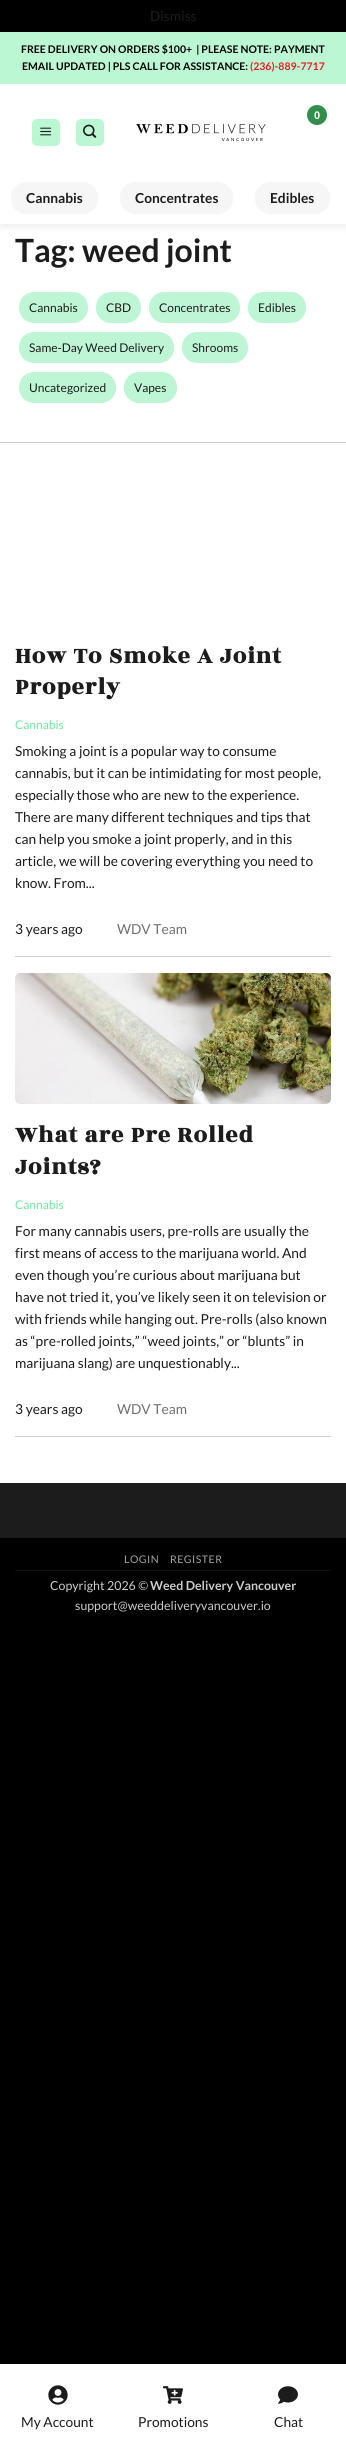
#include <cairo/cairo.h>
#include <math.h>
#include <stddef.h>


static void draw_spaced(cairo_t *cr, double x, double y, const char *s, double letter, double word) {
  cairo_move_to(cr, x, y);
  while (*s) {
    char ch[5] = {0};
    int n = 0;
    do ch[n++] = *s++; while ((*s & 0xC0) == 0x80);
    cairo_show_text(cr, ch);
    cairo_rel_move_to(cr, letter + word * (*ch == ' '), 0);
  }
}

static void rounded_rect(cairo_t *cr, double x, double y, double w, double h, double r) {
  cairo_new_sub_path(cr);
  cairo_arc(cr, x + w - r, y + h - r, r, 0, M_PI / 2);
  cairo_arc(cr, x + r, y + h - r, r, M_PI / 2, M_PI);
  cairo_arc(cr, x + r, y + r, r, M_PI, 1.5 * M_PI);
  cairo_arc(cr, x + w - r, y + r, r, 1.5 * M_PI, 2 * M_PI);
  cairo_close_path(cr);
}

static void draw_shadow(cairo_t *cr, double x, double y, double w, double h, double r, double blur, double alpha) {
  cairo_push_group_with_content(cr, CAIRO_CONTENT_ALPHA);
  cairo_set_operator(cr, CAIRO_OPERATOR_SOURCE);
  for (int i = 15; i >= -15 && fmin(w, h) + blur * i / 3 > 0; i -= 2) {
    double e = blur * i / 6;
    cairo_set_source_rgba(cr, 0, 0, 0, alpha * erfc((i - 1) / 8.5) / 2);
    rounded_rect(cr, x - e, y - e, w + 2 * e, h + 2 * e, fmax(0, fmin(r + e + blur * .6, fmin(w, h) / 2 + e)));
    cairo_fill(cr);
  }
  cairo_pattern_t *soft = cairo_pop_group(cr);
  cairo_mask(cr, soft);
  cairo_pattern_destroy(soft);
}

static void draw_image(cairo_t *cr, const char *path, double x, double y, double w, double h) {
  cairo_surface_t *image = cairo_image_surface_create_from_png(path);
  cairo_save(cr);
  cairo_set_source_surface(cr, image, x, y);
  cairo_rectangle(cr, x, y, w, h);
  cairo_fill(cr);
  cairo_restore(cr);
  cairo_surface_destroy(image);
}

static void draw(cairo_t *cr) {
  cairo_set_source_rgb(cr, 0, 0, 0);
  cairo_paint(cr);
  cairo_set_source_rgb(cr, 1, 1, 1);
  cairo_rectangle(cr, 0, 84, 346, 1399);
  cairo_fill(cr);
  cairo_save(cr);
  cairo_set_fill_rule(cr, CAIRO_FILL_RULE_EVEN_ODD);
  cairo_new_path(cr);
  cairo_move_to(cr, 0, 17);
  cairo_line_to(cr, 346, 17);
  cairo_line_to(cr, 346, 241);
  cairo_line_to(cr, 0, 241);
  cairo_close_path(cr);
  cairo_move_to(cr, 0, 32);
  cairo_line_to(cr, 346, 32);
  cairo_line_to(cr, 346, 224);
  cairo_line_to(cr, 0, 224);
  cairo_close_path(cr);
  cairo_clip(cr);
  cairo_set_source_rgb(cr, 0, 0, 0);
  draw_shadow(cr, 1, 33, 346, 192, 0, 5, 0.1);
  cairo_restore(cr);
  cairo_set_source_rgb(cr, 188 / 255.0, 247 / 255.0, 212 / 255.0);
  cairo_rectangle(cr, 0, 32, 346, 52);
  cairo_fill(cr);
  cairo_set_source_rgb(cr, 48 / 255.0, 144 / 255.0, 74 / 255.0);
  cairo_arc(cr, 317, 115, 10, 0, 2 * M_PI);
  cairo_fill(cr);
  cairo_set_source_rgb(cr, 188 / 255.0, 247 / 255.0, 212 / 255.0);
  rounded_rect(cr, 32, 119, 28, 27, 5);
  cairo_fill(cr);
  draw_image(cr, "images/1.png", 40, 127, 12, 9);
  rounded_rect(cr, 76, 119, 28, 27, 5);
  cairo_fill(cr);
  draw_image(cr, "images/2.png", 83, 124, 14, 14);
  draw_image(cr, "images/3.png", 136, 124, 130, 17);
  cairo_set_source_rgb(cr, 246 / 255.0, 246 / 255.0, 246 / 255.0);
  rounded_rect(cr, 11, 182, 87, 32, 15);
  cairo_fill(cr);
  rounded_rect(cr, 120, 182, 113, 32, 15);
  cairo_fill(cr);
  rounded_rect(cr, 255, 182, 75, 32, 15);
  cairo_fill(cr);
  cairo_set_source_rgb(cr, 190 / 255.0, 246 / 255.0, 213 / 255.0);
  rounded_rect(cr, 19, 292, 69, 31, 15);
  cairo_fill(cr);
  rounded_rect(cr, 96, 292, 45, 31, 15);
  cairo_fill(cr);
  rounded_rect(cr, 149, 292, 91, 31, 15);
  cairo_fill(cr);
  rounded_rect(cr, 248, 292, 58, 31, 15);
  cairo_fill(cr);
  rounded_rect(cr, 19, 332, 155, 31, 15);
  cairo_fill(cr);
  rounded_rect(cr, 182, 332, 66, 31, 15);
  cairo_fill(cr);
  rounded_rect(cr, 19, 372, 97, 31, 15);
  cairo_fill(cr);
  rounded_rect(cr, 124, 372, 53, 31, 15);
  cairo_fill(cr);
  cairo_set_source_rgb(cr, 206 / 255.0, 206 / 255.0, 206 / 255.0);
  cairo_rectangle(cr, 0, 442, 346, 1);
  cairo_fill(cr);
  cairo_rectangle(cr, 15, 956, 316, 1);
  cairo_fill(cr);
  cairo_rectangle(cr, 15, 1436, 316, 1);
  cairo_fill(cr);
  draw_image(cr, "images/4.png", 15, 973, 316, 131);
  cairo_set_source_rgb(cr, 28 / 255.0, 28 / 255.0, 28 / 255.0);
  cairo_rectangle(cr, 0, 1483, 346, 55);
  cairo_fill(cr);
  cairo_set_source_rgb(cr, 16 / 255.0, 16 / 255.0, 16 / 255.0);
  cairo_rectangle(cr, 15, 1570, 316, 1);
  cairo_fill(cr);
  cairo_set_source_rgb(cr, 1, 1, 1);
  cairo_rectangle(cr, 0, 2364, 346, 90);
  cairo_fill(cr);
  draw_image(cr, "images/5.png", 48, 2385, 20, 20);
  draw_image(cr, "images/6.png", 163, 2386, 20, 18);
  draw_image(cr, "images/7.png", 278, 2386, 20, 18);
  cairo_select_font_face(cr, "Lato", CAIRO_FONT_SLANT_NORMAL, CAIRO_FONT_WEIGHT_NORMAL);
  cairo_set_font_size(cr, 13.75);
  cairo_set_source_rgb(cr, 28 / 255.0, 28 / 255.0, 28 / 255.0);
  cairo_move_to(cr, 150, 21);
  cairo_show_text(cr, "Dismiss");
  cairo_select_font_face(cr, "Lato", CAIRO_FONT_SLANT_NORMAL, CAIRO_FONT_WEIGHT_BOLD);
  cairo_set_font_size(cr, 10.5);
  cairo_set_source_rgb(cr, 0, 0, 0);
  cairo_move_to(cr, 21, 53);
  cairo_show_text(cr, "FREE DELIVERY ON ORDERS $100+  | PLEASE NOTE: PAYMENT");
  cairo_move_to(cr, 22, 70);
  cairo_show_text(cr, "EMAIL UPDATED | PLS CALL FOR ASSISTANCE:");
  cairo_set_source_rgb(cr, 237 / 255.0, 28 / 255.0, 36 / 255.0);
  cairo_move_to(cr, 250, 70);
  cairo_show_text(cr, "(236)-889-7717");
  cairo_select_font_face(cr, "Liberation Sans", CAIRO_FONT_SLANT_NORMAL, CAIRO_FONT_WEIGHT_BOLD);
  cairo_set_font_size(cr, 11);
  cairo_set_source_rgb(cr, 1, 1, 1);
  cairo_move_to(cr, 314, 119);
  cairo_show_text(cr, "0");
  cairo_select_font_face(cr, "Lato", CAIRO_FONT_SLANT_NORMAL, CAIRO_FONT_WEIGHT_BOLD);
  cairo_set_font_size(cr, 13.75);
  cairo_set_source_rgb(cr, 28 / 255.0, 28 / 255.0, 28 / 255.0);
  cairo_move_to(cr, 26, 203);
  cairo_show_text(cr, "Cannabis");
  cairo_move_to(cr, 135, 203);
  cairo_show_text(cr, "Concentrates");
  cairo_move_to(cr, 270, 203);
  cairo_show_text(cr, "Edibles");
  cairo_set_font_size(cr, 32);
  cairo_move_to(cr, 15, 262);
  cairo_show_text(cr, "Tag: weed joint");
  cairo_select_font_face(cr, "Lato", CAIRO_FONT_SLANT_NORMAL, CAIRO_FONT_WEIGHT_NORMAL);
  cairo_set_font_size(cr, 12);
  cairo_move_to(cr, 29, 312);
  cairo_show_text(cr, "Cannabis");
  cairo_move_to(cr, 106, 312);
  cairo_show_text(cr, "CBD");
  cairo_move_to(cr, 159, 312);
  cairo_show_text(cr, "Concentrates");
  cairo_move_to(cr, 258, 312);
  cairo_show_text(cr, "Edibles");
  cairo_move_to(cr, 29, 352);
  cairo_show_text(cr, "Same-Day Weed Delivery");
  cairo_move_to(cr, 192, 352);
  cairo_show_text(cr, "Shrooms");
  cairo_move_to(cr, 29, 392);
  cairo_show_text(cr, "Uncategorized");
  cairo_move_to(cr, 134, 392);
  cairo_show_text(cr, "Vapes");
  cairo_select_font_face(cr, "Rozha One", CAIRO_FONT_SLANT_NORMAL, CAIRO_FONT_WEIGHT_BOLD);
  cairo_set_font_size(cr, 24);
  draw_spaced(cr, 15, 663, "How To Smoke A Joint", 1, 0);
  draw_spaced(cr, 15, 694, "Properly", 1, 0);
  cairo_select_font_face(cr, "Lato", CAIRO_FONT_SLANT_NORMAL, CAIRO_FONT_WEIGHT_NORMAL);
  cairo_set_font_size(cr, 12);
  cairo_set_source_rgb(cr, 115 / 255.0, 229 / 255.0, 161 / 255.0);
  cairo_move_to(cr, 15, 729);
  cairo_show_text(cr, "Cannabis");
  cairo_set_font_size(cr, 13.75);
  cairo_set_source_rgb(cr, 28 / 255.0, 28 / 255.0, 28 / 255.0);
  cairo_move_to(cr, 15, 756);
  cairo_show_text(cr, "Smoking a joint is a popular way to consume");
  cairo_move_to(cr, 15, 778);
  cairo_show_text(cr, "cannabis, but it can be intimidating for most people,");
  cairo_move_to(cr, 15, 800);
  cairo_show_text(cr, "especially those who are new to the experience.");
  cairo_move_to(cr, 15, 822);
  cairo_show_text(cr, "There are many different techniques and tips that");
  cairo_move_to(cr, 15, 844);
  cairo_show_text(cr, "can help you smoke a joint properly, and in this");
  cairo_move_to(cr, 15, 866);
  cairo_show_text(cr, "article, we will be covering everything you need to");
  cairo_move_to(cr, 15, 888);
  cairo_show_text(cr, "know. From...");
  cairo_move_to(cr, 15, 934);
  cairo_show_text(cr, "3 years ago");
  cairo_set_source_rgb(cr, 112 / 255.0, 112 / 255.0, 112 / 255.0);
  cairo_move_to(cr, 117, 934);
  cairo_show_text(cr, "WDV Team");
  cairo_select_font_face(cr, "Rozha One", CAIRO_FONT_SLANT_NORMAL, CAIRO_FONT_WEIGHT_BOLD);
  cairo_set_font_size(cr, 24);
  cairo_set_source_rgb(cr, 28 / 255.0, 28 / 255.0, 28 / 255.0);
  draw_spaced(cr, 15, 1142, "What are Pre Rolled", 1, 0);
  draw_spaced(cr, 15, 1174, "Joints?", 1, 0);
  cairo_select_font_face(cr, "Lato", CAIRO_FONT_SLANT_NORMAL, CAIRO_FONT_WEIGHT_NORMAL);
  cairo_set_font_size(cr, 12);
  cairo_set_source_rgb(cr, 115 / 255.0, 229 / 255.0, 161 / 255.0);
  cairo_move_to(cr, 15, 1209);
  cairo_show_text(cr, "Cannabis");
  cairo_set_font_size(cr, 13.75);
  cairo_set_source_rgb(cr, 28 / 255.0, 28 / 255.0, 28 / 255.0);
  cairo_move_to(cr, 15, 1236);
  cairo_show_text(cr, "For many cannabis users, pre-rolls are usually the");
  cairo_move_to(cr, 15, 1258);
  cairo_show_text(cr, "first means of access to the marijuana world. And");
  cairo_move_to(cr, 15, 1280);
  cairo_show_text(cr, "even though you’re curious about marijuana but");
  cairo_move_to(cr, 15, 1302);
  cairo_show_text(cr, "have not tried it, you’ve likely seen it on television or");
  cairo_move_to(cr, 15, 1324);
  cairo_show_text(cr, "with friends while hanging out. Pre-rolls (also known");
  cairo_move_to(cr, 15, 1346);
  cairo_show_text(cr, "as “pre-rolled joints,” “weed joints,” or “blunts” in");
  cairo_move_to(cr, 15, 1368);
  cairo_show_text(cr, "marijuana slang) are unquestionably...");
  cairo_move_to(cr, 15, 1414);
  cairo_show_text(cr, "3 years ago");
  cairo_set_source_rgb(cr, 112 / 255.0, 112 / 255.0, 112 / 255.0);
  cairo_move_to(cr, 117, 1414);
  cairo_show_text(cr, "WDV Team");
  cairo_set_font_size(cr, 10.5);
  cairo_set_source_rgb(cr, 163 / 255.0, 163 / 255.0, 163 / 255.0);
  draw_spaced(cr, 124, 1563, "LOGIN", 0.5, 0);
  draw_spaced(cr, 170, 1563, "REGISTER", 0.5, 0);
  cairo_set_font_size(cr, 12.4);
  cairo_set_source_rgb(cr, 204 / 255.0, 204 / 255.0, 204 / 255.0);
  cairo_move_to(cr, 50, 1590);
  cairo_show_text(cr, "Copyright 2026 ©");
  cairo_select_font_face(cr, "Lato", CAIRO_FONT_SLANT_NORMAL, CAIRO_FONT_WEIGHT_BOLD);
  cairo_move_to(cr, 150, 1590);
  cairo_show_text(cr, "Weed Delivery Vancouver");
  cairo_select_font_face(cr, "Lato", CAIRO_FONT_SLANT_NORMAL, CAIRO_FONT_WEIGHT_NORMAL);
  cairo_move_to(cr, 75, 1610);
  cairo_show_text(cr, "support@weeddeliveryvancouver.io");
  cairo_set_font_size(cr, 13.75);
  cairo_set_source_rgb(cr, 28 / 255.0, 28 / 255.0, 28 / 255.0);
  cairo_move_to(cr, 21, 2427);
  cairo_show_text(cr, "My Account");
  cairo_move_to(cr, 138, 2427);
  cairo_show_text(cr, "Promotions");
  cairo_move_to(cr, 274, 2427);
  cairo_show_text(cr, "Chat");
}

int main(void) {
  cairo_surface_t *surface = cairo_image_surface_create(CAIRO_FORMAT_RGB24, 346, 2454);
  cairo_t *cr = cairo_create(surface);
  cairo_font_options_t *options = cairo_font_options_create();
  cairo_font_options_set_hint_metrics(options, CAIRO_HINT_METRICS_OFF);
  cairo_font_options_set_hint_style(options, CAIRO_HINT_STYLE_NONE);
  cairo_set_font_options(cr, options);
  cairo_set_miter_limit(cr, 4);
  draw(cr);
  cairo_surface_write_to_png(surface, "out.png");
  cairo_font_options_destroy(options);
  cairo_destroy(cr);
  cairo_surface_destroy(surface);
  return 0;
}
